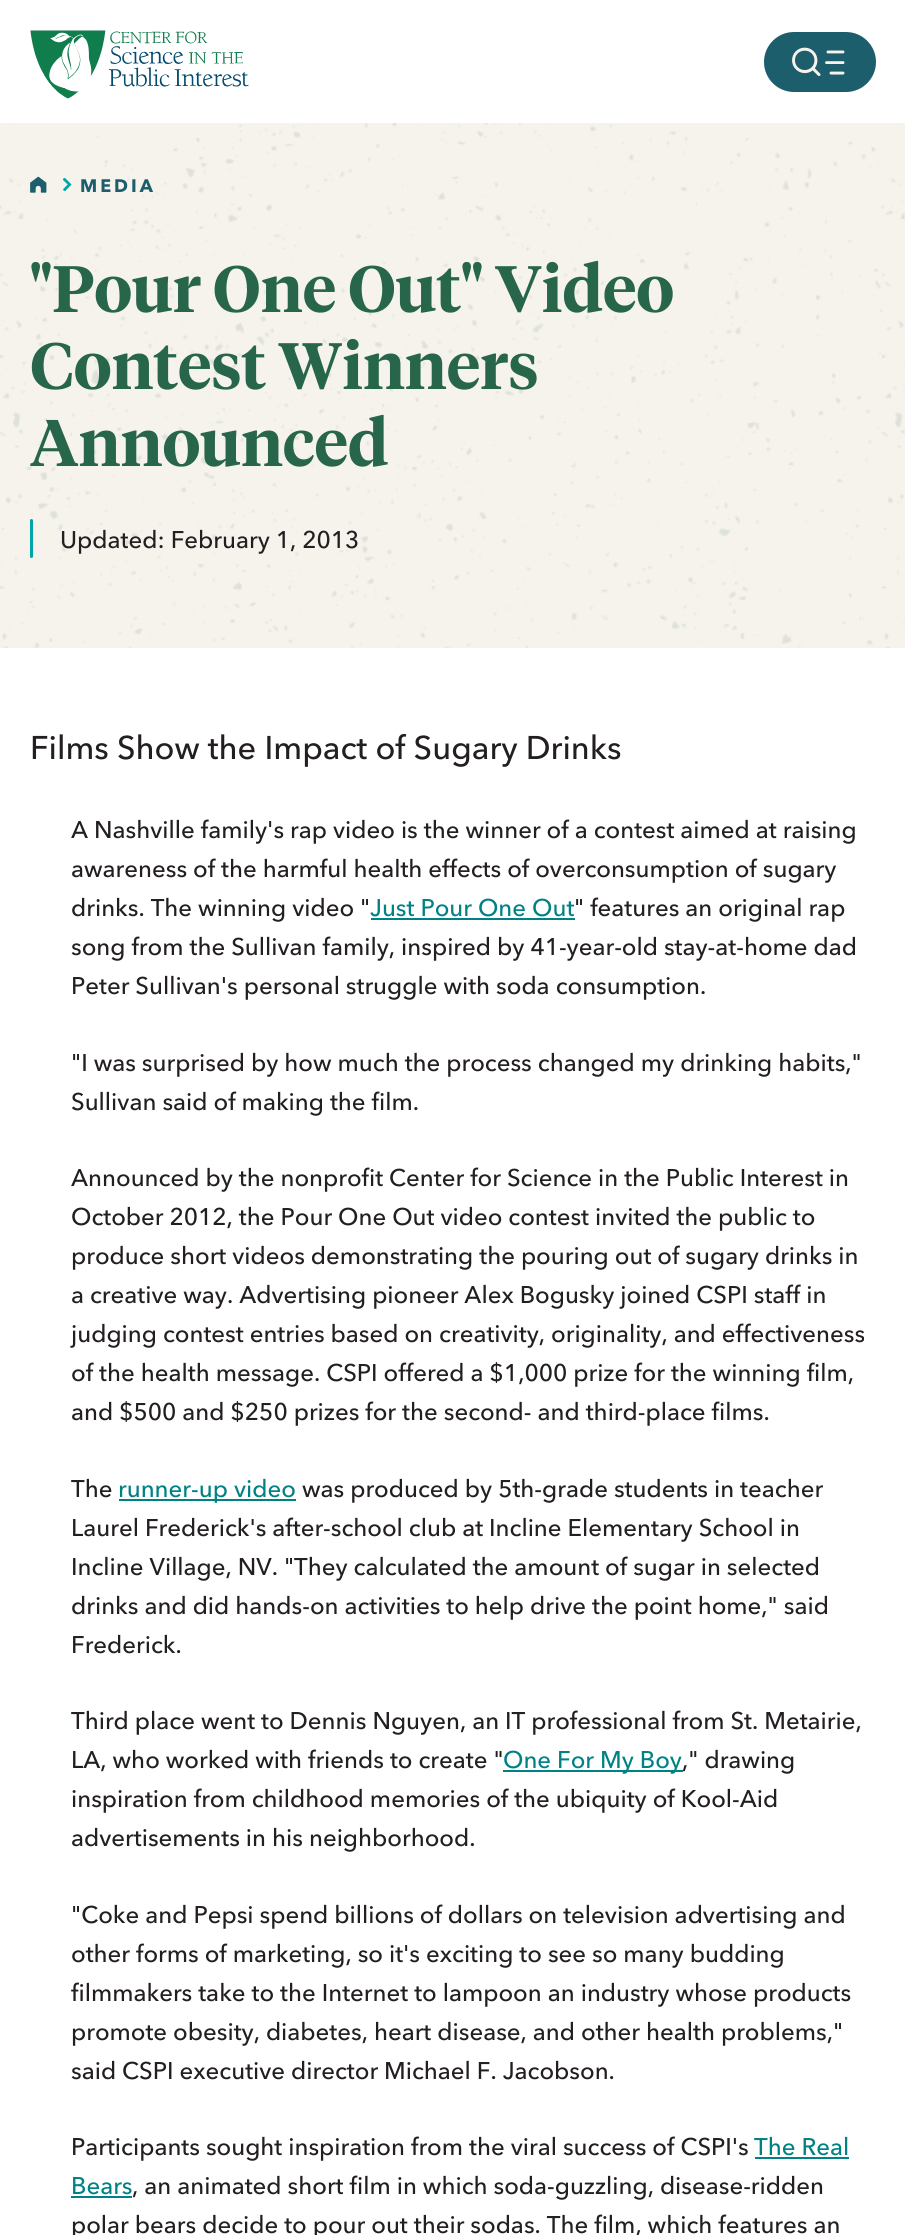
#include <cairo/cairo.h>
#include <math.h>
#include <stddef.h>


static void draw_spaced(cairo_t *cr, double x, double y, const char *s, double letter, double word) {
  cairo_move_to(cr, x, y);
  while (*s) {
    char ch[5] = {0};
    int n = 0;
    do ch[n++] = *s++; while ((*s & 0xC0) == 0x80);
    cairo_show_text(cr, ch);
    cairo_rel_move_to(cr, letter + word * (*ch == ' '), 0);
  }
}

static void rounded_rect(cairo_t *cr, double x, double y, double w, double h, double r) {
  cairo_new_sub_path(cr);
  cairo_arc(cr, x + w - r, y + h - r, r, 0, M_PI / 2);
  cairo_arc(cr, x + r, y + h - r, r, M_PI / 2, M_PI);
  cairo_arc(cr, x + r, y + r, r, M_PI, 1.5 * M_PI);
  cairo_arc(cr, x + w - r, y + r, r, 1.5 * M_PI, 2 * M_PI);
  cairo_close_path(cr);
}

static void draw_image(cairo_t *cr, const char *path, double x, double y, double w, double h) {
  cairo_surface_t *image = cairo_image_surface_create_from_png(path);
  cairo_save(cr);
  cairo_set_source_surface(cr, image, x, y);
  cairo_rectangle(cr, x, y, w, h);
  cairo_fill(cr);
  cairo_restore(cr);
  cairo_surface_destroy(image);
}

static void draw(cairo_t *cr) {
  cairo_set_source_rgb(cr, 1, 1, 1);
  cairo_paint(cr);
  draw_image(cr, "images/1.png", 30, 30, 219, 69);
  cairo_set_source_rgb(cr, 29 / 255.0, 94 / 255.0, 109 / 255.0);
  rounded_rect(cr, 764, 32, 112, 60, 30);
  cairo_fill(cr);
  draw_image(cr, "images/2.png", 792, 47, 53, 29);
  cairo_set_source_rgb(cr, 246 / 255.0, 243 / 255.0, 236 / 255.0);
  cairo_rectangle(cr, 0, 123, 905, 525);
  cairo_fill(cr);
  draw_image(cr, "images/3.png", 0, 123, 905, 525);
  draw_image(cr, "images/4.png", 30, 176, 17, 17);
  draw_image(cr, "images/5.png", 63, 178, 9, 13);
  cairo_set_source_rgb(cr, 0, 165 / 255.0, 168 / 255.0);
  rounded_rect(cr, 30, 519, 3, 39, 1.5);
  cairo_fill(cr);
  cairo_set_source_rgb(cr, 0, 130 / 255.0, 133 / 255.0);
  cairo_rectangle(cr, 371, 918, 204, 2);
  cairo_fill(cr);
  cairo_rectangle(cr, 119, 1499, 177, 2);
  cairo_fill(cr);
  cairo_rectangle(cr, 503, 1770, 180, 2);
  cairo_fill(cr);
  cairo_rectangle(cr, 755, 2157, 94, 2);
  cairo_fill(cr);
  cairo_rectangle(cr, 71, 2196, 61, 2);
  cairo_fill(cr);
  cairo_select_font_face(cr, "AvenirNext", CAIRO_FONT_SLANT_NORMAL, CAIRO_FONT_WEIGHT_BOLD);
  cairo_set_font_size(cr, 18);
  cairo_set_source_rgb(cr, 29 / 255.0, 94 / 255.0, 109 / 255.0);
  draw_spaced(cr, 80, 192, "MEDIA", 3, 0);
  cairo_select_font_face(cr, "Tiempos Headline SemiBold", CAIRO_FONT_SLANT_NORMAL, CAIRO_FONT_WEIGHT_NORMAL);
  cairo_set_font_size(cr, 65.25);
  cairo_set_source_rgb(cr, 39 / 255.0, 102 / 255.0, 74 / 255.0);
  cairo_move_to(cr, 30, 312);
  cairo_show_text(cr, "\"Pour One Out\" Video");
  cairo_move_to(cr, 30, 389);
  cairo_show_text(cr, "Contest Winners");
  cairo_move_to(cr, 30, 466);
  cairo_show_text(cr, "Announced");
  cairo_select_font_face(cr, "AvenirNext Medium", CAIRO_FONT_SLANT_NORMAL, CAIRO_FONT_WEIGHT_NORMAL);
  cairo_set_font_size(cr, 24);
  cairo_set_source_rgb(cr, 35 / 255.0, 31 / 255.0, 32 / 255.0);
  cairo_move_to(cr, 60, 548);
  cairo_show_text(cr, "Updated: February 1, 2013");
  cairo_set_font_size(cr, 32.6);
  cairo_move_to(cr, 30, 759);
  cairo_show_text(cr, "Films Show the Impact of Sugary Drinks");
  cairo_set_font_size(cr, 24);
  cairo_move_to(cr, 71, 838);
  cairo_show_text(cr, "A Nashville family's rap video is the winner of a contest aimed at raising");
  cairo_move_to(cr, 71, 877);
  cairo_show_text(cr, "awareness of the harmful health effects of overconsumption of sugary");
  cairo_move_to(cr, 71, 916);
  cairo_show_text(cr, "drinks. The winning video \"");
  cairo_set_source_rgb(cr, 0, 130 / 255.0, 133 / 255.0);
  cairo_move_to(cr, 370, 916);
  cairo_show_text(cr, "Just Pour One Out");
  cairo_set_source_rgb(cr, 35 / 255.0, 31 / 255.0, 32 / 255.0);
  cairo_move_to(cr, 574, 916);
  cairo_show_text(cr, "\" features an original rap");
  cairo_move_to(cr, 71, 955);
  cairo_show_text(cr, "song from the Sullivan family, inspired by 41-year-old stay-at-home dad");
  cairo_move_to(cr, 71, 994);
  cairo_show_text(cr, "Peter Sullivan's personal struggle with soda consumption.");
  cairo_move_to(cr, 71, 1071);
  cairo_show_text(cr, "\"I was surprised by how much the process changed my drinking habits,\"");
  cairo_move_to(cr, 71, 1110);
  cairo_show_text(cr, "Sullivan said of making the film.");
  cairo_move_to(cr, 71, 1186);
  cairo_show_text(cr, "Announced by the nonprofit Center for Science in the Public Interest in");
  cairo_move_to(cr, 71, 1225);
  cairo_show_text(cr, "October 2012, the Pour One Out video contest invited the public to");
  cairo_move_to(cr, 71, 1264);
  cairo_show_text(cr, "produce short videos demonstrating the pouring out of sugary drinks in");
  cairo_move_to(cr, 71, 1303);
  cairo_show_text(cr, "a creative way. Advertising pioneer Alex Bogusky joined CSPI staff in");
  cairo_move_to(cr, 71, 1342);
  cairo_show_text(cr, "judging contest entries based on creativity, originality, and effectiveness");
  cairo_move_to(cr, 71, 1381);
  cairo_show_text(cr, "of the health message. CSPI offered a $1,000 prize for the winning film,");
  cairo_move_to(cr, 71, 1420);
  cairo_show_text(cr, "and $500 and $250 prizes for the second- and third-place films.");
  cairo_move_to(cr, 71, 1497);
  cairo_show_text(cr, "The");
  cairo_set_source_rgb(cr, 0, 130 / 255.0, 133 / 255.0);
  cairo_move_to(cr, 118, 1497);
  cairo_show_text(cr, "runner-up video");
  cairo_set_source_rgb(cr, 35 / 255.0, 31 / 255.0, 32 / 255.0);
  cairo_move_to(cr, 302, 1497);
  cairo_show_text(cr, "was produced by 5th-grade students in teacher");
  cairo_move_to(cr, 71, 1536);
  cairo_show_text(cr, "Laurel Frederick's after-school club at Incline Elementary School in");
  cairo_move_to(cr, 71, 1575);
  cairo_show_text(cr, "Incline Village, NV. \"They calculated the amount of sugar in selected");
  cairo_move_to(cr, 71, 1614);
  cairo_show_text(cr, "drinks and did hands-on activities to help drive the point home,\" said");
  cairo_move_to(cr, 71, 1653);
  cairo_show_text(cr, "Frederick.");
  cairo_move_to(cr, 71, 1729);
  cairo_show_text(cr, "Third place went to Dennis Nguyen, an IT professional from St. Metairie,");
  cairo_move_to(cr, 71, 1768);
  cairo_show_text(cr, "LA, who worked with friends to create \"");
  cairo_set_source_rgb(cr, 0, 130 / 255.0, 133 / 255.0);
  cairo_move_to(cr, 503, 1768);
  cairo_show_text(cr, "One For My Boy");
  cairo_set_source_rgb(cr, 35 / 255.0, 31 / 255.0, 32 / 255.0);
  cairo_move_to(cr, 682, 1768);
  cairo_show_text(cr, ",\" drawing");
  cairo_move_to(cr, 71, 1807);
  cairo_show_text(cr, "inspiration from childhood memories of the ubiquity of Kool-Aid");
  cairo_move_to(cr, 71, 1846);
  cairo_show_text(cr, "advertisements in his neighborhood.");
  cairo_move_to(cr, 71, 1923);
  cairo_show_text(cr, "\"Coke and Pepsi spend billions of dollars on television advertising and");
  cairo_move_to(cr, 71, 1962);
  cairo_show_text(cr, "other forms of marketing, so it's exciting to see so many budding");
  cairo_move_to(cr, 71, 2001);
  cairo_show_text(cr, "filmmakers take to the Internet to lampoon an industry whose products");
  cairo_move_to(cr, 71, 2040);
  cairo_show_text(cr, "promote obesity, diabetes, heart disease, and other health problems,\"");
  cairo_move_to(cr, 71, 2079);
  cairo_show_text(cr, "said CSPI executive director Michael F. Jacobson.");
  cairo_move_to(cr, 71, 2155);
  cairo_show_text(cr, "Participants sought inspiration from the viral success of CSPI's");
  cairo_set_source_rgb(cr, 0, 130 / 255.0, 133 / 255.0);
  cairo_move_to(cr, 754, 2155);
  cairo_show_text(cr, "The Real");
  cairo_move_to(cr, 71, 2194);
  cairo_show_text(cr, "Bears");
  cairo_set_source_rgb(cr, 35 / 255.0, 31 / 255.0, 32 / 255.0);
  cairo_move_to(cr, 132, 2194);
  cairo_show_text(cr, ", an animated short film in which soda-guzzling, disease-ridden");
  cairo_move_to(cr, 71, 2233);
  cairo_show_text(cr, "polar bears decide to pour out their sodas. The film, which features an");
}

int main(void) {
  cairo_surface_t *surface = cairo_image_surface_create(CAIRO_FORMAT_RGB24, 905, 2235);
  cairo_t *cr = cairo_create(surface);
  cairo_font_options_t *options = cairo_font_options_create();
  cairo_font_options_set_hint_metrics(options, CAIRO_HINT_METRICS_OFF);
  cairo_font_options_set_hint_style(options, CAIRO_HINT_STYLE_NONE);
  cairo_set_font_options(cr, options);
  cairo_set_miter_limit(cr, 4);
  draw(cr);
  cairo_surface_write_to_png(surface, "out.png");
  cairo_font_options_destroy(options);
  cairo_destroy(cr);
  cairo_surface_destroy(surface);
  return 0;
}
